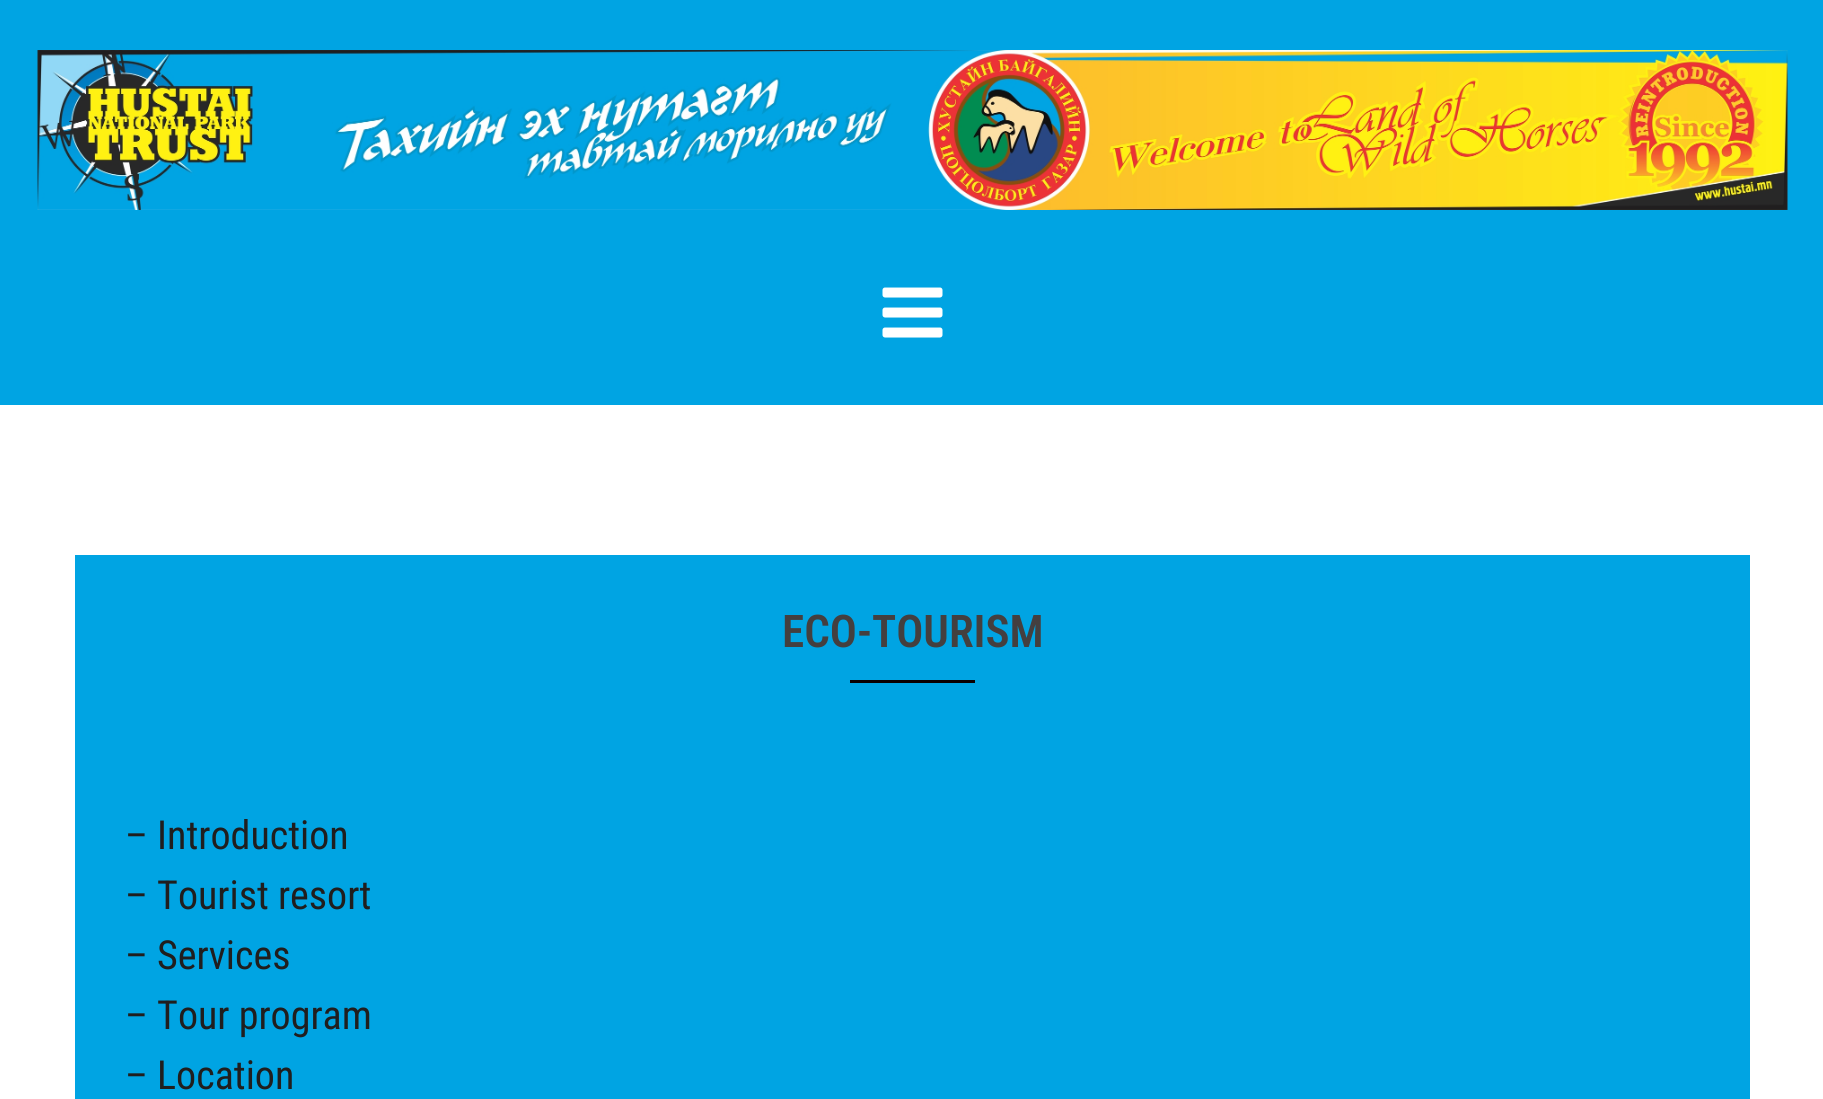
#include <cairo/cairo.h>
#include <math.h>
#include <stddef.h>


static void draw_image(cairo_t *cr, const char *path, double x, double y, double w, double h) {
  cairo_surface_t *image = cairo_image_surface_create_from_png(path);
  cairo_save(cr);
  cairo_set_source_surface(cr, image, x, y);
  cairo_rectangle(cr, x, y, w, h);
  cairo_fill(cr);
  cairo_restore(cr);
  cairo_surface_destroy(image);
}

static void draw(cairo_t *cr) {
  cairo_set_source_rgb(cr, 1, 1, 1);
  cairo_paint(cr);
  cairo_set_source_rgb(cr, 0, 164 / 255.0, 227 / 255.0);
  cairo_rectangle(cr, 0, 0, 1823, 405);
  cairo_fill(cr);
  draw_image(cr, "images/1.png", 37, 50, 1751, 160);
  draw_image(cr, "images/2.png", 882, 287, 61, 51);
  cairo_rectangle(cr, 75, 555, 1675, 544);
  cairo_fill(cr);
  cairo_set_source_rgb(cr, 10 / 255.0, 0, 2 / 255.0);
  cairo_rectangle(cr, 850, 680, 125, 3);
  cairo_fill(cr);
  cairo_select_font_face(cr, "Roboto Condensed SemiBold", CAIRO_FONT_SLANT_NORMAL, CAIRO_FONT_WEIGHT_NORMAL);
  cairo_set_font_size(cr, 45);
  cairo_set_source_rgb(cr, 68 / 255.0, 63 / 255.0, 63 / 255.0);
  cairo_move_to(cr, 782, 647);
  cairo_show_text(cr, "ECO-TOURISM");
  cairo_select_font_face(cr, "Roboto Condensed", CAIRO_FONT_SLANT_NORMAL, CAIRO_FONT_WEIGHT_NORMAL);
  cairo_set_font_size(cr, 40);
  cairo_set_source_rgb(cr, 32 / 255.0, 30 / 255.0, 30 / 255.0);
  cairo_move_to(cr, 125, 849);
  cairo_show_text(cr, "– Introduction");
  cairo_move_to(cr, 125, 909);
  cairo_show_text(cr, "– Tourist resort");
  cairo_move_to(cr, 125, 969);
  cairo_show_text(cr, "– Services");
  cairo_move_to(cr, 125, 1029);
  cairo_show_text(cr, "– Tour program");
  cairo_move_to(cr, 125, 1089);
  cairo_show_text(cr, "– Location");
}

int main(void) {
  cairo_surface_t *surface = cairo_image_surface_create(CAIRO_FORMAT_RGB24, 1823, 1099);
  cairo_t *cr = cairo_create(surface);
  cairo_font_options_t *options = cairo_font_options_create();
  cairo_font_options_set_hint_metrics(options, CAIRO_HINT_METRICS_OFF);
  cairo_font_options_set_hint_style(options, CAIRO_HINT_STYLE_NONE);
  cairo_set_font_options(cr, options);
  cairo_set_miter_limit(cr, 4);
  draw(cr);
  cairo_surface_write_to_png(surface, "out.png");
  cairo_font_options_destroy(options);
  cairo_destroy(cr);
  cairo_surface_destroy(surface);
  return 0;
}
